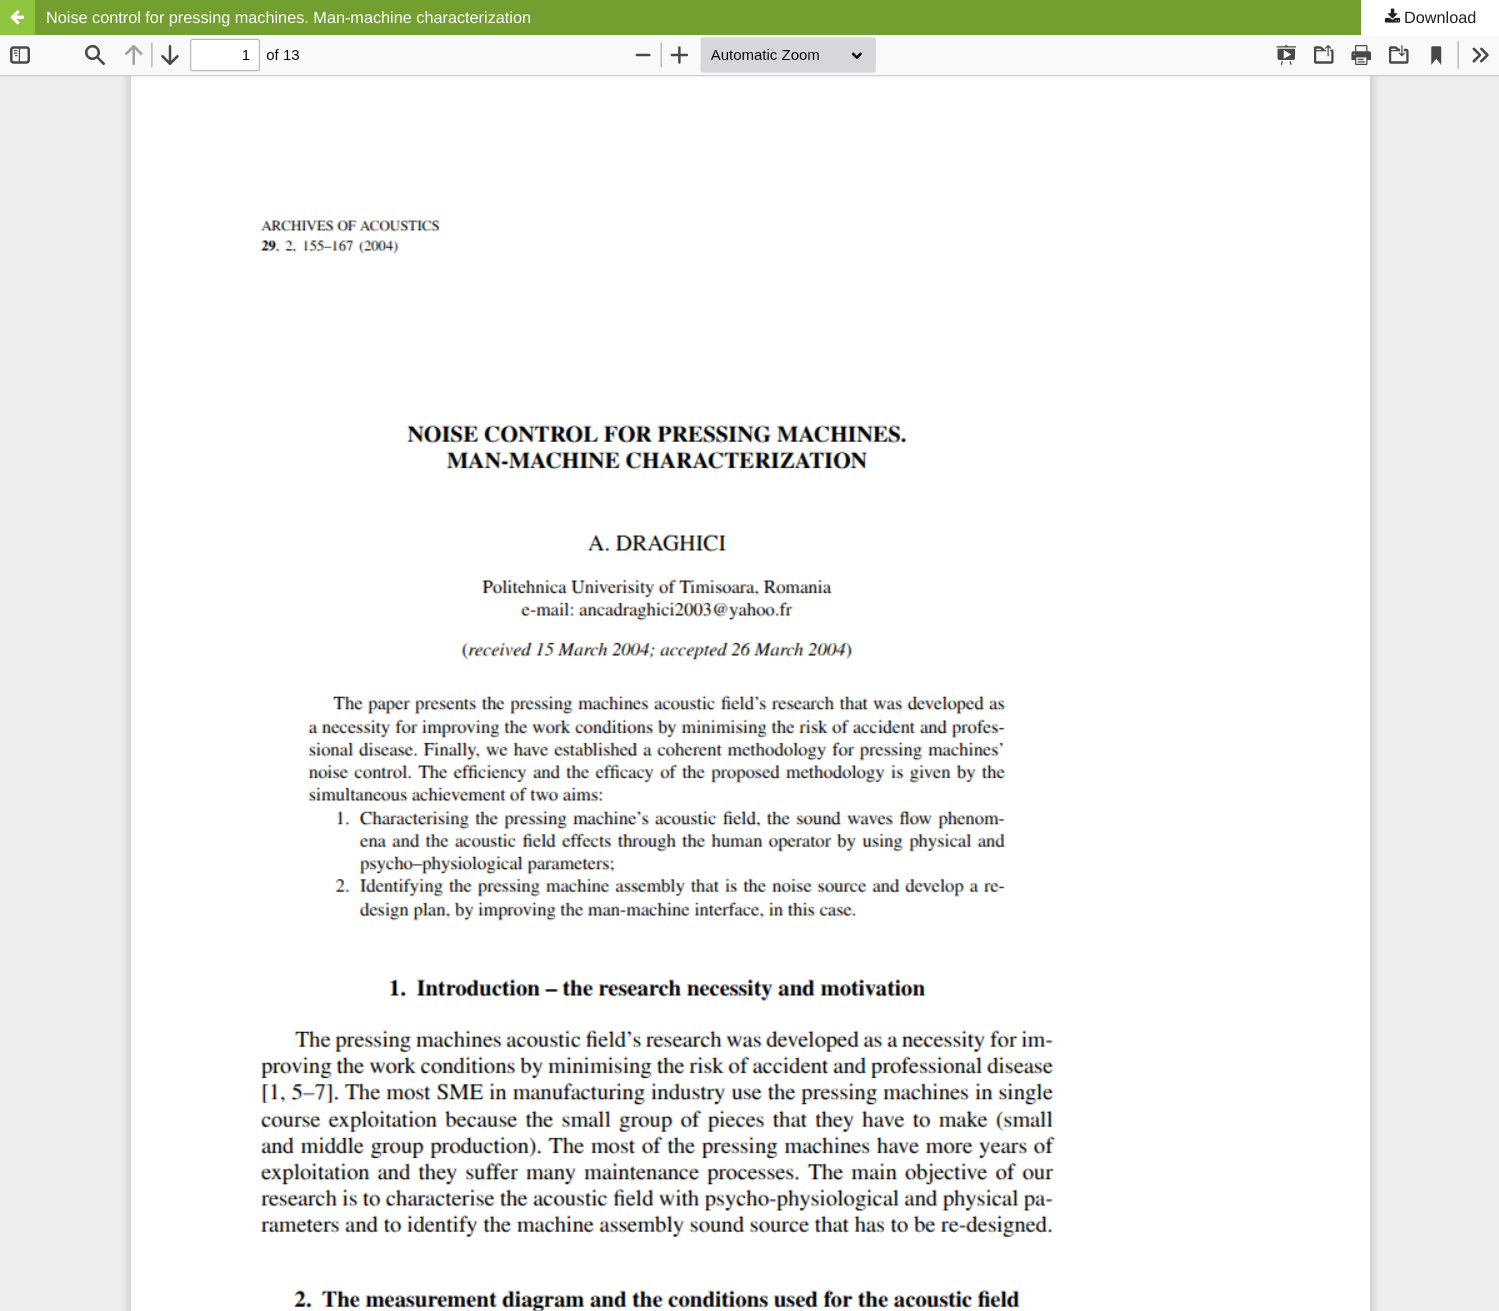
#include <cairo/cairo.h>
#include <math.h>
#include <stddef.h>


static void draw_image(cairo_t *cr, const char *path, double x, double y, double w, double h) {
  cairo_surface_t *image = cairo_image_surface_create_from_png(path);
  cairo_save(cr);
  cairo_set_source_surface(cr, image, x, y);
  cairo_rectangle(cr, x, y, w, h);
  cairo_fill(cr);
  cairo_restore(cr);
  cairo_surface_destroy(image);
}

static void draw(cairo_t *cr) {
  cairo_set_source_rgb(cr, 1, 1, 1);
  cairo_paint(cr);
  cairo_set_source_rgb(cr, 115 / 255.0, 159 / 255.0, 49 / 255.0);
  cairo_rectangle(cr, 35, 0, 1326, 35);
  cairo_fill(cr);
  cairo_set_source_rgb(cr, 143 / 255.0, 196 / 255.0, 63 / 255.0);
  cairo_rectangle(cr, 0, 0, 35, 35);
  cairo_fill(cr);
  draw_image(cr, "images/1.png", 10, 10, 14, 15);
  draw_image(cr, "images/2.png", 1385, 8, 16, 15);
  draw_image(cr, "images/3.png", 0, 35, 1499, 1276);
  cairo_select_font_face(cr, "Liberation Sans", CAIRO_FONT_SLANT_NORMAL, CAIRO_FONT_WEIGHT_NORMAL);
  cairo_set_font_size(cr, 16.25);
  cairo_set_source_rgb(cr, 1, 1, 1);
  cairo_move_to(cr, 46, 23);
  cairo_show_text(cr, "Noise control for pressing machines. Man-machine characterization");
  cairo_set_source_rgb(cr, 33 / 255.0, 33 / 255.0, 33 / 255.0);
  cairo_move_to(cr, 1404, 23);
  cairo_show_text(cr, "Download");
}

int main(void) {
  cairo_surface_t *surface = cairo_image_surface_create(CAIRO_FORMAT_RGB24, 1499, 1311);
  cairo_t *cr = cairo_create(surface);
  cairo_font_options_t *options = cairo_font_options_create();
  cairo_font_options_set_hint_metrics(options, CAIRO_HINT_METRICS_OFF);
  cairo_font_options_set_hint_style(options, CAIRO_HINT_STYLE_NONE);
  cairo_set_font_options(cr, options);
  cairo_set_miter_limit(cr, 4);
  draw(cr);
  cairo_surface_write_to_png(surface, "out.png");
  cairo_font_options_destroy(options);
  cairo_destroy(cr);
  cairo_surface_destroy(surface);
  return 0;
}
